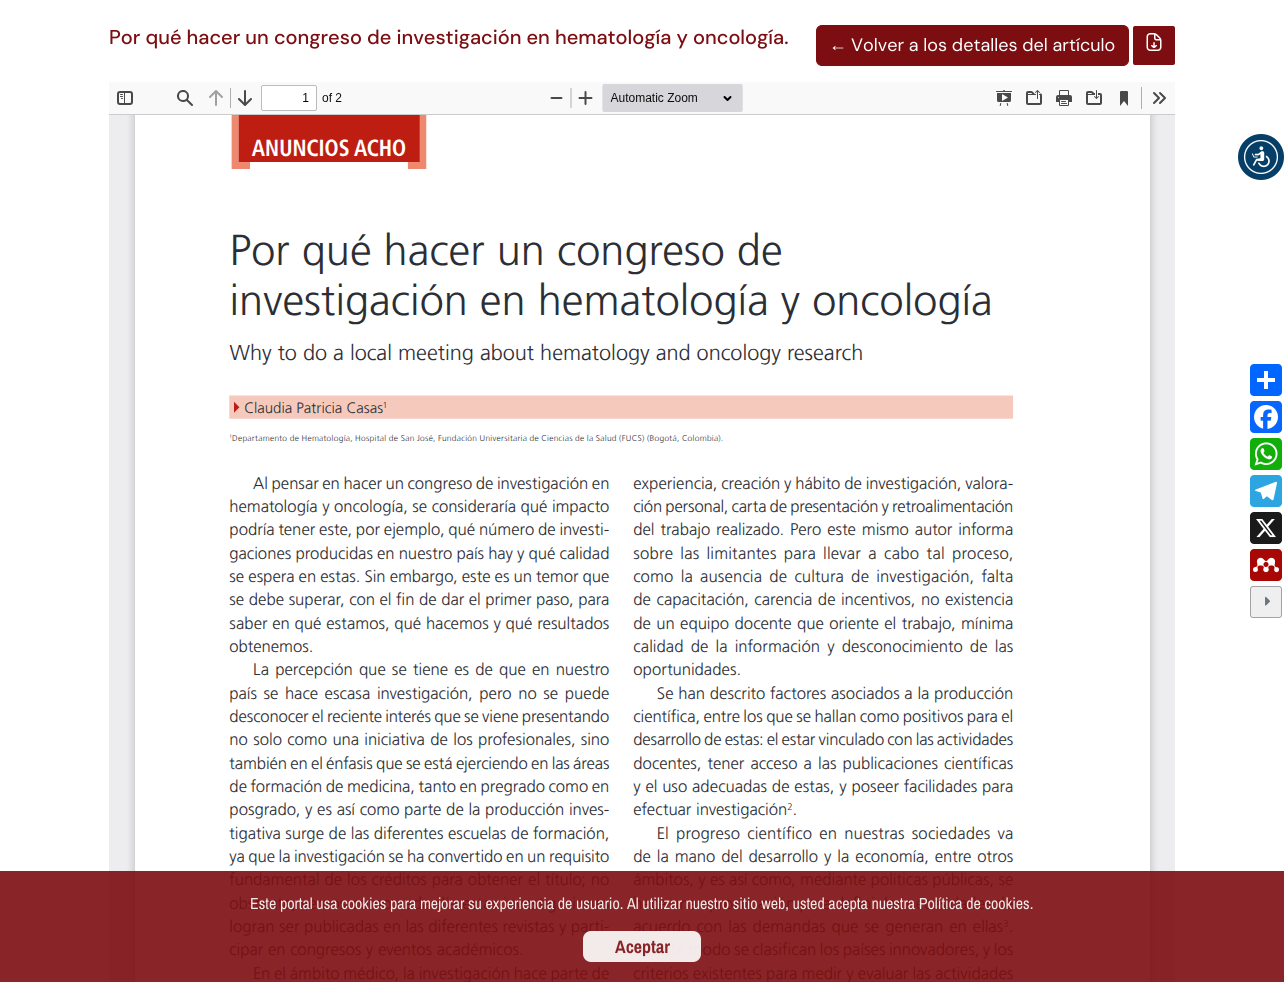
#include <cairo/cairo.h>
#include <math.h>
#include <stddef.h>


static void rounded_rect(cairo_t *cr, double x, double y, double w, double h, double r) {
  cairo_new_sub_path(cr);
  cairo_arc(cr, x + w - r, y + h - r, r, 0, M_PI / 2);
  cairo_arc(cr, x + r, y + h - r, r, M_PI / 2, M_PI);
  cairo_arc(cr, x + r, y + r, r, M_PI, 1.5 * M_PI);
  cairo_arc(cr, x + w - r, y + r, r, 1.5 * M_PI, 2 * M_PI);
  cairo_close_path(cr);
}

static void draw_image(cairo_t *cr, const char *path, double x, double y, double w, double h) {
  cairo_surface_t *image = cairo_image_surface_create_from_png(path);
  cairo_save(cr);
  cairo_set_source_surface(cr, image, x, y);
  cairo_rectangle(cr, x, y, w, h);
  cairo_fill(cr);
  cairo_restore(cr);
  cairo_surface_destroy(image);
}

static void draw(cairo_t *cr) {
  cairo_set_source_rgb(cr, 1, 1, 1);
  cairo_paint(cr);
  cairo_set_source_rgb(cr, 124 / 255.0, 14 / 255.0, 17 / 255.0);
  rounded_rect(cr, 816.5, 25.5, 312, 40, 5.5);
  cairo_fill_preserve(cr);
  cairo_set_line_width(cr, 1);
  cairo_stroke(cr);
  rounded_rect(cr, 1133, 26, 42, 39, 2);
  cairo_fill(cr);
  draw_image(cr, "images/1.png", 1146, 33, 16, 18);
  draw_image(cr, "images/2.png", 109, 82, 1066, 900);
  cairo_set_source_rgb(cr, 5 / 255.0, 63 / 255.0, 103 / 255.0);
  cairo_arc(cr, 1261, 157, 23, 0, 2 * M_PI);
  cairo_fill(cr);
  draw_image(cr, "images/3.png", 1243, 140, 35, 34);
  cairo_set_source_rgb(cr, 1 / 255.0, 102 / 255.0, 1);
  rounded_rect(cr, 1250, 364, 32, 32, 4);
  cairo_fill(cr);
  cairo_set_source_rgb(cr, 1, 1, 1);
  cairo_rectangle(cr, 1264, 371, 4, 18);
  cairo_fill(cr);
  cairo_rectangle(cr, 1257, 378, 18, 4);
  cairo_fill(cr);
  cairo_set_source_rgb(cr, 8 / 255.0, 102 / 255.0, 1);
  rounded_rect(cr, 1250, 401, 32, 32, 4);
  cairo_fill(cr);
  draw_image(cr, "images/4.png", 1254, 405, 24, 24);
  cairo_set_source_rgb(cr, 18 / 255.0, 175 / 255.0, 10 / 255.0);
  rounded_rect(cr, 1250, 438, 32, 32, 4);
  cairo_fill(cr);
  draw_image(cr, "images/5.png", 1254, 442, 24, 24);
  cairo_set_source_rgb(cr, 44 / 255.0, 165 / 255.0, 224 / 255.0);
  rounded_rect(cr, 1250, 475, 32, 32, 4);
  cairo_fill(cr);
  draw_image(cr, "images/6.png", 1255, 481, 22, 20);
  cairo_set_source_rgb(cr, 26 / 255.0, 26 / 255.0, 26 / 255.0);
  rounded_rect(cr, 1250, 512, 32, 32, 4);
  cairo_fill(cr);
  draw_image(cr, "images/7.png", 1256, 519, 20, 19);
  cairo_set_source_rgb(cr, 167 / 255.0, 8 / 255.0, 5 / 255.0);
  rounded_rect(cr, 1250, 549, 32, 32, 4);
  cairo_fill(cr);
  draw_image(cr, "images/8.png", 1253, 557, 26, 16);
  cairo_set_source_rgb(cr, 239 / 255.0, 239 / 255.0, 239 / 255.0);
  rounded_rect(cr, 1250.5, 586.5, 31, 31, 2.5);
  cairo_fill_preserve(cr);
  cairo_set_source_rgb(cr, 161 / 255.0, 163 / 255.0, 166 / 255.0);
  cairo_stroke(cr);
  draw_image(cr, "images/9.png", 1265, 596, 5, 10);
  cairo_set_source_rgba(cr, 124 / 255.0, 14 / 255.0, 17 / 255.0, 0.9);
  cairo_rectangle(cr, 0, 871, 1284, 111);
  cairo_fill(cr);
  cairo_set_source_rgba(cr, 1, 1, 1, 0.9);
  rounded_rect(cr, 583, 931, 118, 31, 8);
  cairo_fill(cr);
  cairo_select_font_face(cr, "DM Sans Medium", CAIRO_FONT_SLANT_NORMAL, CAIRO_FONT_WEIGHT_NORMAL);
  cairo_set_font_size(cr, 20);
  cairo_set_source_rgb(cr, 124 / 255.0, 14 / 255.0, 17 / 255.0);
  cairo_move_to(cr, 109, 44);
  cairo_show_text(cr, "Por qué hacer un congreso de investigación en hematología y oncología.");
  cairo_select_font_face(cr, "Liberation Sans", CAIRO_FONT_SLANT_NORMAL, CAIRO_FONT_WEIGHT_NORMAL);
  cairo_set_font_size(cr, 18);
  cairo_set_source_rgb(cr, 1, 1, 1);
  cairo_move_to(cr, 829, 51);
  cairo_show_text(cr, "←");
  cairo_select_font_face(cr, "DM Sans", CAIRO_FONT_SLANT_NORMAL, CAIRO_FONT_WEIGHT_NORMAL);
  cairo_move_to(cr, 851, 51);
  cairo_show_text(cr, "Volver a los detalles del artículo");
  cairo_select_font_face(cr, "Archivo Narrow", CAIRO_FONT_SLANT_NORMAL, CAIRO_FONT_WEIGHT_NORMAL);
  cairo_set_font_size(cr, 16);
  cairo_set_source_rgb(cr, 243 / 255.0, 233 / 255.0, 233 / 255.0);
  cairo_move_to(cr, 250, 909);
  cairo_show_text(cr, "Este portal usa cookies para mejorar su experiencia de usuario. Al utilizar nuestro sitio web, usted acepta nuestra Política de cookies.");
  cairo_select_font_face(cr, "Archivo Narrow", CAIRO_FONT_SLANT_NORMAL, CAIRO_FONT_WEIGHT_BOLD);
  cairo_set_font_size(cr, 18);
  cairo_set_source_rgb(cr, 136 / 255.0, 36 / 255.0, 39 / 255.0);
  cairo_move_to(cr, 615, 953);
  cairo_show_text(cr, "Aceptar");
}

int main(void) {
  cairo_surface_t *surface = cairo_image_surface_create(CAIRO_FORMAT_RGB24, 1284, 982);
  cairo_t *cr = cairo_create(surface);
  cairo_font_options_t *options = cairo_font_options_create();
  cairo_font_options_set_hint_metrics(options, CAIRO_HINT_METRICS_OFF);
  cairo_font_options_set_hint_style(options, CAIRO_HINT_STYLE_NONE);
  cairo_set_font_options(cr, options);
  cairo_set_miter_limit(cr, 4);
  draw(cr);
  cairo_surface_write_to_png(surface, "out.png");
  cairo_font_options_destroy(options);
  cairo_destroy(cr);
  cairo_surface_destroy(surface);
  return 0;
}
